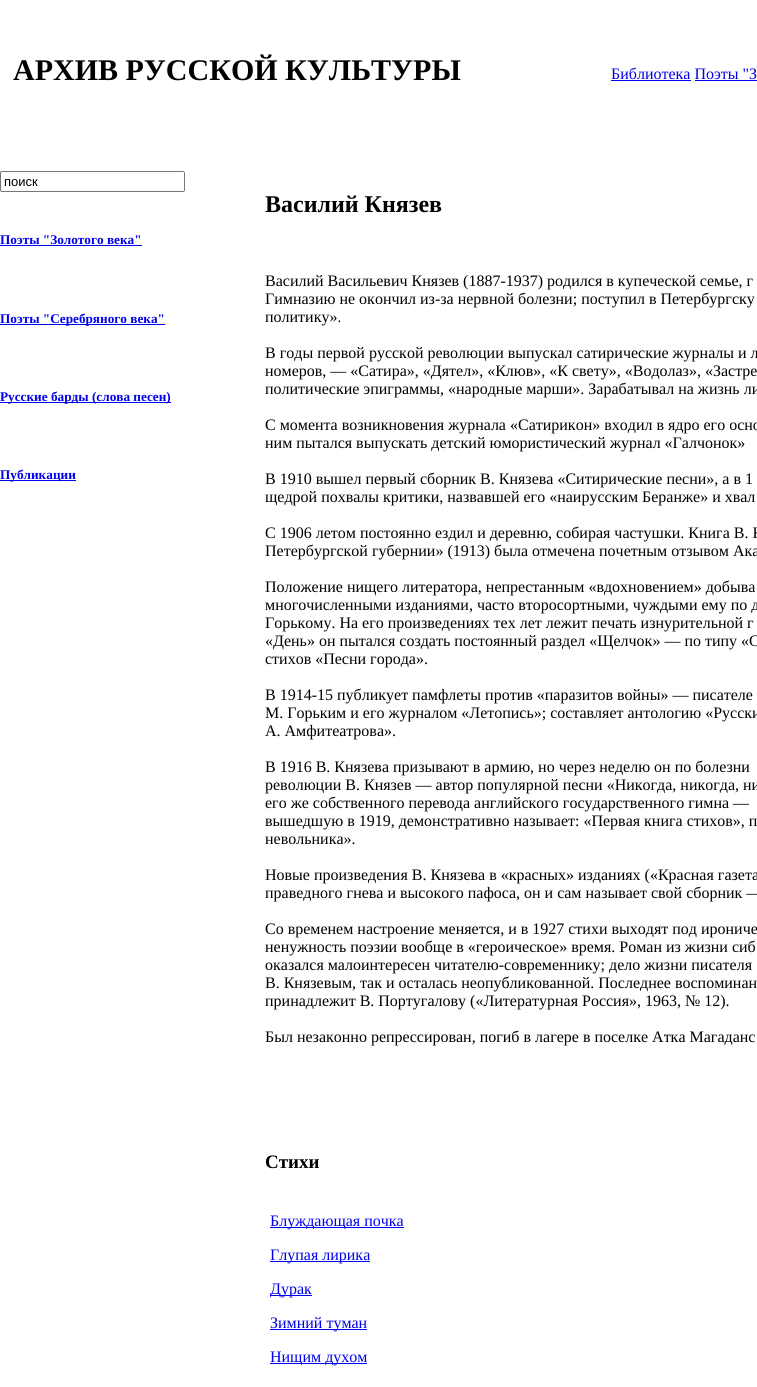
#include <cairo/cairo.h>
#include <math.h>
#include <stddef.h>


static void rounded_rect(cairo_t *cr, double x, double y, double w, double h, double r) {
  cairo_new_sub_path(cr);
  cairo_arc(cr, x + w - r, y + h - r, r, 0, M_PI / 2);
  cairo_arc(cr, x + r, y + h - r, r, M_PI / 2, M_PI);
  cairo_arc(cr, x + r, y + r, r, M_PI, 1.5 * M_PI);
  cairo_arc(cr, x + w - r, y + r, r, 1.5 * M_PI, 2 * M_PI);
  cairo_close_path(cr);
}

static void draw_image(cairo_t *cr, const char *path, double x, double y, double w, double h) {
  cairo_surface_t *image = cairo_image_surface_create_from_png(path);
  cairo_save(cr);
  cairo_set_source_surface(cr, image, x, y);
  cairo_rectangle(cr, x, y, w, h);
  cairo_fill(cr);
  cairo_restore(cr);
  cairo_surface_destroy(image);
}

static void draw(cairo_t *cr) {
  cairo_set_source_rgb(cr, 1, 1, 1);
  cairo_paint(cr);
  draw_image(cr, "images/1.png", 1, 4, 10, 9);
  draw_image(cr, "images/2.png", 17, 6, 10, 7);
  draw_image(cr, "images/3.png", 33, 4, 9, 9);
  cairo_set_source_rgb(cr, 0, 0, 238 / 255.0);
  cairo_rectangle(cr, 611, 80, 80, 1);
  cairo_fill(cr);
  cairo_rectangle(cr, 695, 80, 62, 1);
  cairo_fill(cr);
  rounded_rect(cr, 0.5, 171.5, 184, 20, 1.5);
  cairo_set_source_rgb(cr, 118 / 255.0, 118 / 255.0, 118 / 255.0);
  cairo_set_line_width(cr, 1);
  cairo_stroke(cr);
  cairo_set_source_rgb(cr, 0, 0, 238 / 255.0);
  cairo_rectangle(cr, 0, 245, 142, 1);
  cairo_fill(cr);
  cairo_rectangle(cr, 0, 324, 165, 1);
  cairo_fill(cr);
  cairo_rectangle(cr, 0, 402, 171, 1);
  cairo_fill(cr);
  cairo_rectangle(cr, 0, 480, 76, 1);
  cairo_fill(cr);
  cairo_rectangle(cr, 270, 1227, 134, 1);
  cairo_fill(cr);
  cairo_rectangle(cr, 270, 1261, 100, 1);
  cairo_fill(cr);
  cairo_rectangle(cr, 270, 1295, 42, 1);
  cairo_fill(cr);
  cairo_rectangle(cr, 270, 1329, 97, 1);
  cairo_fill(cr);
  cairo_rectangle(cr, 270, 1363, 97, 1);
  cairo_fill(cr);
  cairo_select_font_face(cr, "Liberation Serif", CAIRO_FONT_SLANT_NORMAL, CAIRO_FONT_WEIGHT_BOLD);
  cairo_set_font_size(cr, 30);
  cairo_set_source_rgb(cr, 0, 0, 0);
  cairo_move_to(cr, 13, 80);
  cairo_show_text(cr, "АРХИВ РУССКОЙ КУЛЬТУРЫ");
  cairo_select_font_face(cr, "Liberation Serif", CAIRO_FONT_SLANT_NORMAL, CAIRO_FONT_WEIGHT_NORMAL);
  cairo_set_font_size(cr, 16);
  cairo_set_source_rgb(cr, 0, 0, 238 / 255.0);
  cairo_move_to(cr, 611, 79);
  cairo_show_text(cr, "Библиотека Поэты \"З");
  cairo_select_font_face(cr, "Liberation Sans", CAIRO_FONT_SLANT_NORMAL, CAIRO_FONT_WEIGHT_NORMAL);
  cairo_set_font_size(cr, 13);
  cairo_set_source_rgb(cr, 0, 0, 0);
  cairo_move_to(cr, 4, 186);
  cairo_show_text(cr, "поиск");
  cairo_select_font_face(cr, "Liberation Serif", CAIRO_FONT_SLANT_NORMAL, CAIRO_FONT_WEIGHT_BOLD);
  cairo_set_font_size(cr, 13.25);
  cairo_set_source_rgb(cr, 0, 0, 238 / 255.0);
  cairo_move_to(cr, 0, 244);
  cairo_show_text(cr, "Поэты \"Золотого века\"");
  cairo_move_to(cr, 0, 323);
  cairo_show_text(cr, "Поэты \"Серебряного века\"");
  cairo_move_to(cr, 0, 401);
  cairo_show_text(cr, "Русские барды (слова песен)");
  cairo_move_to(cr, 0, 479);
  cairo_show_text(cr, "Публикации");
  cairo_set_font_size(cr, 24);
  cairo_set_source_rgb(cr, 0, 0, 0);
  cairo_move_to(cr, 265, 212);
  cairo_show_text(cr, "Василий Князев");
  cairo_select_font_face(cr, "Liberation Serif", CAIRO_FONT_SLANT_NORMAL, CAIRO_FONT_WEIGHT_NORMAL);
  cairo_set_font_size(cr, 16);
  cairo_move_to(cr, 265, 286);
  cairo_show_text(cr, "Василий Васильевич Князев (1887-1937) родился в купеческой семье, г");
  cairo_move_to(cr, 265, 304);
  cairo_show_text(cr, "Гимназию не окончил из-за нервной болезни; поступил в Петербургску");
  cairo_move_to(cr, 265, 322);
  cairo_show_text(cr, "политику».");
  cairo_move_to(cr, 265, 358);
  cairo_show_text(cr, "В годы первой русской революции выпускал сатирические журналы и л");
  cairo_move_to(cr, 265, 376);
  cairo_show_text(cr, "номеров, — «Сатира», «Дятел», «Клюв», «К свету», «Водолаз», «Застре");
  cairo_move_to(cr, 265, 394);
  cairo_show_text(cr, "политические эпиграммы, «народные марши». Зарабатывал на жизнь ли");
  cairo_move_to(cr, 265, 430);
  cairo_show_text(cr, "С момента возникновения журнала «Сатирикон» входил в ядро его осно");
  cairo_move_to(cr, 265, 448);
  cairo_show_text(cr, "ним пытался выпускать детский юмористический журнал «Галчонок»");
  cairo_move_to(cr, 265, 484);
  cairo_show_text(cr, "В 1910 вышел первый сборник В. Князева «Ситирические песни», а в 1");
  cairo_move_to(cr, 265, 502);
  cairo_show_text(cr, "щедрой похвалы критики, назвавшей его «наирусским Беранже» и хвал");
  cairo_move_to(cr, 265, 538);
  cairo_show_text(cr, "С 1906 летом постоянно ездил и деревню, собирая частушки. Книга В. К");
  cairo_move_to(cr, 265, 556);
  cairo_show_text(cr, "Петербургской губернии» (1913) была отмечена почетным отзывом Ака");
  cairo_move_to(cr, 265, 592);
  cairo_show_text(cr, "Положение нищего литератора, непрестанным «вдохновением» добыва");
  cairo_move_to(cr, 265, 610);
  cairo_show_text(cr, "многочисленными изданиями, часто второсортными, чуждыми ему по д");
  cairo_move_to(cr, 265, 628);
  cairo_show_text(cr, "Горькому. На его произведениях тех лет лежит печать изнурительной г");
  cairo_move_to(cr, 265, 646);
  cairo_show_text(cr, "«День» он пытался создать постоянный раздел «Щелчок» — по типу «С");
  cairo_move_to(cr, 265, 664);
  cairo_show_text(cr, "стихов «Песни города».");
  cairo_move_to(cr, 265, 700);
  cairo_show_text(cr, "В 1914-15 публикует памфлеты против «паразитов войны» — писателе");
  cairo_move_to(cr, 265, 718);
  cairo_show_text(cr, "М. Горьким и его журналом «Летопись»; составляет антологию «Русски");
  cairo_move_to(cr, 265, 736);
  cairo_show_text(cr, "А. Амфитеатрова».");
  cairo_move_to(cr, 265, 772);
  cairo_show_text(cr, "В 1916 В. Князева призывают в армию, но через неделю он по болезни");
  cairo_move_to(cr, 265, 790);
  cairo_show_text(cr, "революции В. Князев — автор популярной песни «Никогда, никогда, ни");
  cairo_move_to(cr, 265, 808);
  cairo_show_text(cr, "его же собственного перевода английского государственного гимна —");
  cairo_move_to(cr, 265, 826);
  cairo_show_text(cr, "вышедшую в 1919, демонстративно называет: «Первая книга стихов», п");
  cairo_move_to(cr, 265, 844);
  cairo_show_text(cr, "невольника».");
  cairo_move_to(cr, 265, 880);
  cairo_show_text(cr, "Новые произведения В. Князева в «красных» изданиях («Красная газета");
  cairo_move_to(cr, 265, 898);
  cairo_show_text(cr, "праведного гнева и высокого пафоса, он и сам называет свой сборник —");
  cairo_move_to(cr, 265, 934);
  cairo_show_text(cr, "Со временем настроение меняется, и в 1927 стихи выходят под ирониче");
  cairo_move_to(cr, 265, 952);
  cairo_show_text(cr, "ненужность поэзии вообще в «героическое» время. Роман из жизни сиб");
  cairo_move_to(cr, 265, 970);
  cairo_show_text(cr, "оказался малоинтересен читателю-современнику; дело жизни писателя");
  cairo_move_to(cr, 265, 988);
  cairo_show_text(cr, "В. Князевым, так и осталась неопубликованной. Последнее воспоминан");
  cairo_move_to(cr, 265, 1006);
  cairo_show_text(cr, "принадлежит В. Португалову («Литературная Россия», 1963, № 12).");
  cairo_move_to(cr, 265, 1042);
  cairo_show_text(cr, "Был незаконно репрессирован, погиб в лагере в поселке Атка Магаданс");
  cairo_select_font_face(cr, "Liberation Serif", CAIRO_FONT_SLANT_NORMAL, CAIRO_FONT_WEIGHT_BOLD);
  cairo_set_font_size(cr, 19);
  cairo_move_to(cr, 265, 1168);
  cairo_show_text(cr, "Стихи");
  cairo_select_font_face(cr, "Liberation Serif", CAIRO_FONT_SLANT_NORMAL, CAIRO_FONT_WEIGHT_NORMAL);
  cairo_set_font_size(cr, 16);
  cairo_set_source_rgb(cr, 0, 0, 238 / 255.0);
  cairo_move_to(cr, 270, 1226);
  cairo_show_text(cr, "Блуждающая почка");
  cairo_move_to(cr, 270, 1260);
  cairo_show_text(cr, "Глупая лирика");
  cairo_move_to(cr, 270, 1294);
  cairo_show_text(cr, "Дурак");
  cairo_move_to(cr, 270, 1328);
  cairo_show_text(cr, "Зимний туман");
  cairo_move_to(cr, 270, 1362);
  cairo_show_text(cr, "Нищим духом");
}

int main(void) {
  cairo_surface_t *surface = cairo_image_surface_create(CAIRO_FORMAT_RGB24, 757, 1387);
  cairo_t *cr = cairo_create(surface);
  cairo_font_options_t *options = cairo_font_options_create();
  cairo_font_options_set_hint_metrics(options, CAIRO_HINT_METRICS_OFF);
  cairo_font_options_set_hint_style(options, CAIRO_HINT_STYLE_NONE);
  cairo_set_font_options(cr, options);
  cairo_set_miter_limit(cr, 4);
  draw(cr);
  cairo_surface_write_to_png(surface, "out.png");
  cairo_font_options_destroy(options);
  cairo_destroy(cr);
  cairo_surface_destroy(surface);
  return 0;
}
